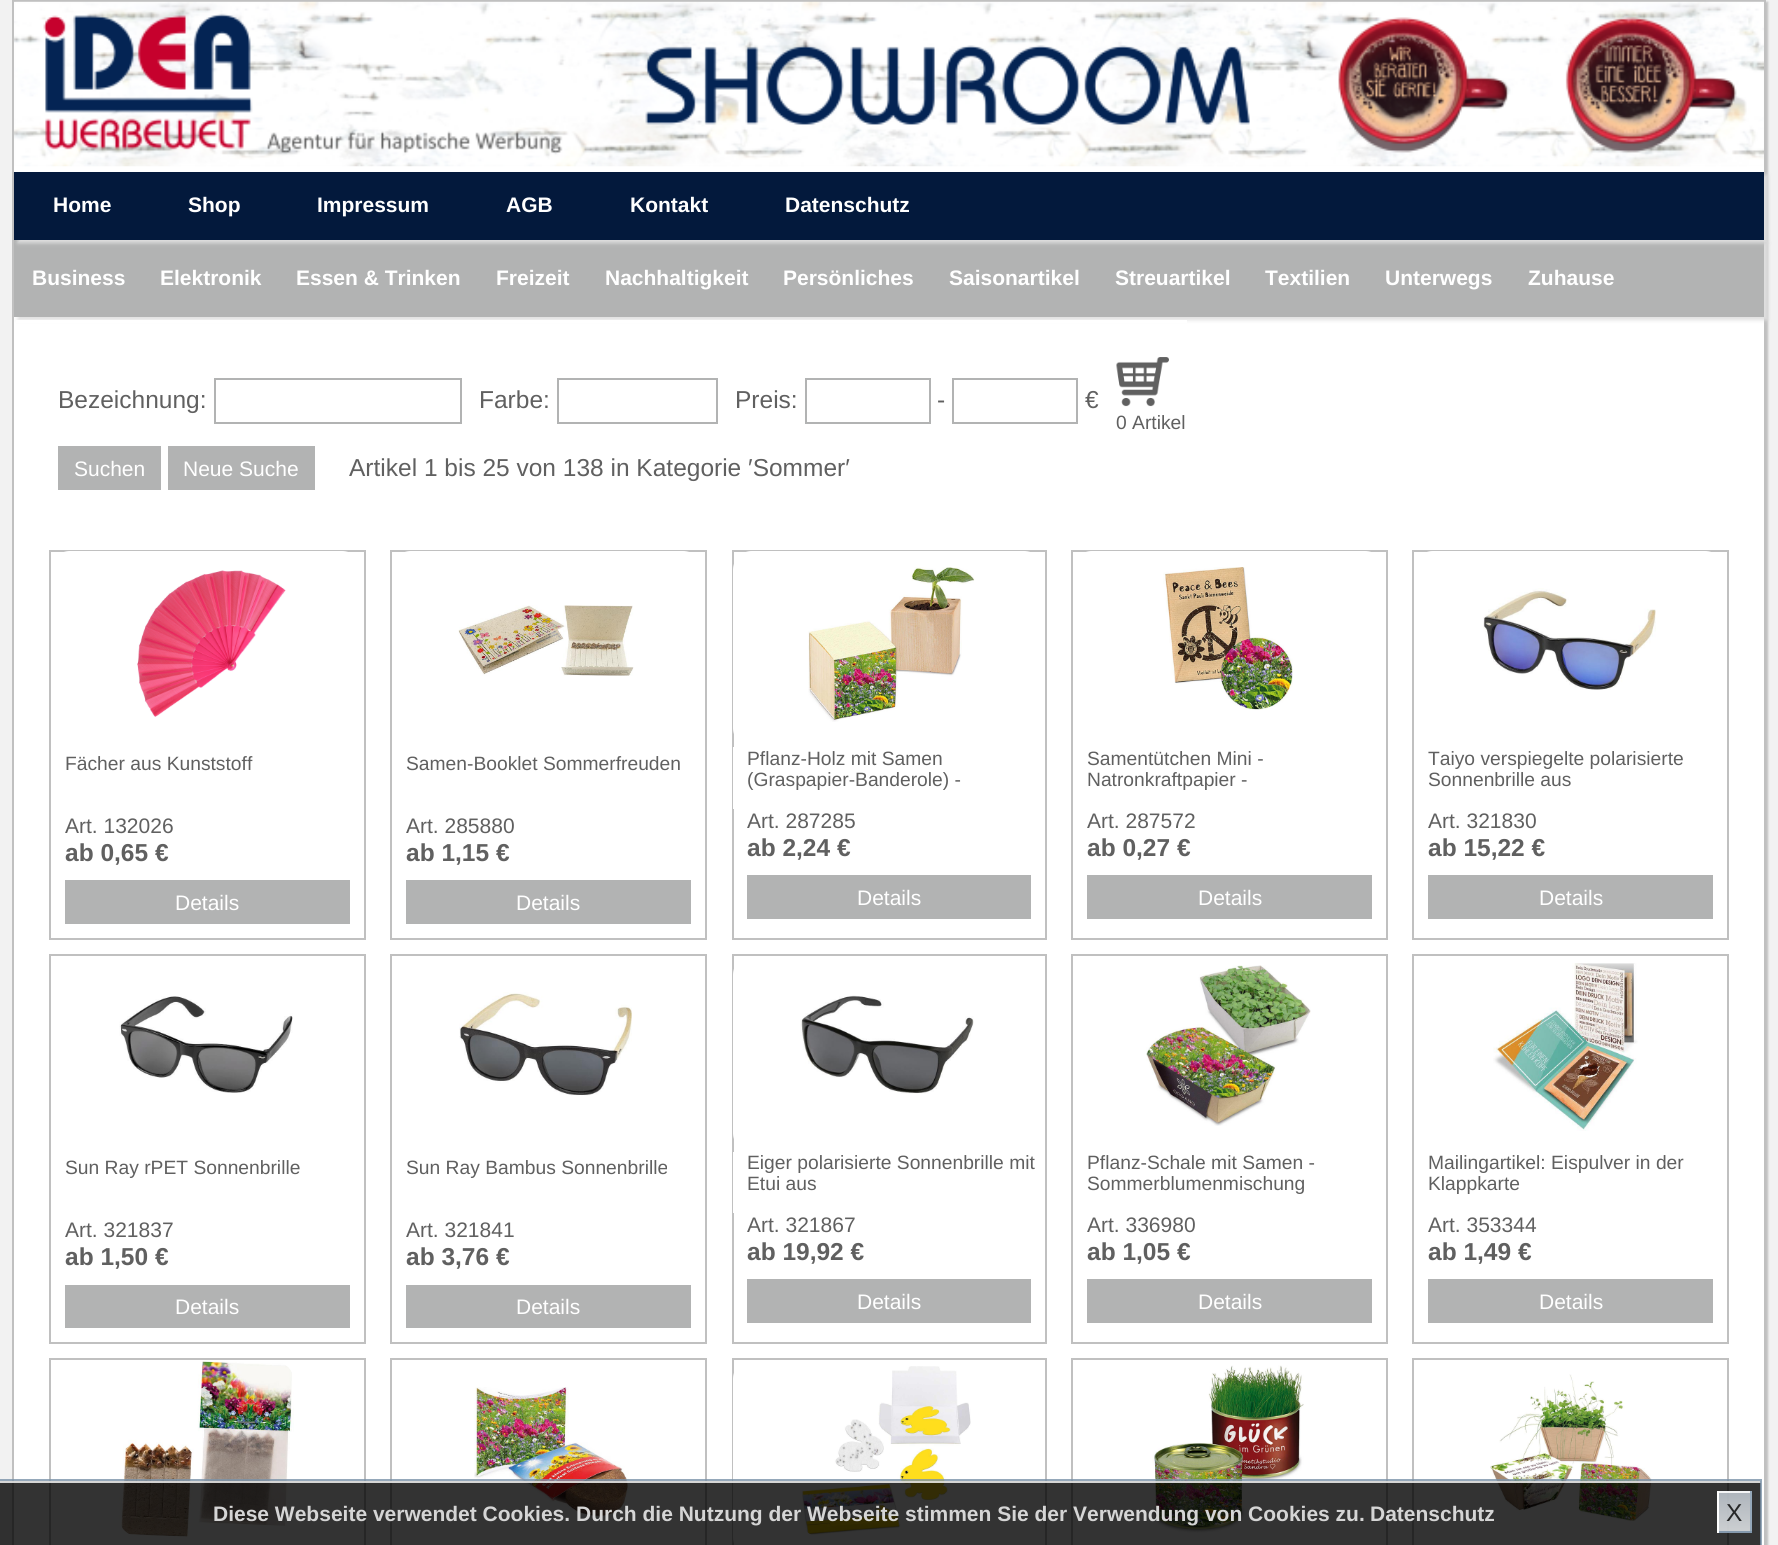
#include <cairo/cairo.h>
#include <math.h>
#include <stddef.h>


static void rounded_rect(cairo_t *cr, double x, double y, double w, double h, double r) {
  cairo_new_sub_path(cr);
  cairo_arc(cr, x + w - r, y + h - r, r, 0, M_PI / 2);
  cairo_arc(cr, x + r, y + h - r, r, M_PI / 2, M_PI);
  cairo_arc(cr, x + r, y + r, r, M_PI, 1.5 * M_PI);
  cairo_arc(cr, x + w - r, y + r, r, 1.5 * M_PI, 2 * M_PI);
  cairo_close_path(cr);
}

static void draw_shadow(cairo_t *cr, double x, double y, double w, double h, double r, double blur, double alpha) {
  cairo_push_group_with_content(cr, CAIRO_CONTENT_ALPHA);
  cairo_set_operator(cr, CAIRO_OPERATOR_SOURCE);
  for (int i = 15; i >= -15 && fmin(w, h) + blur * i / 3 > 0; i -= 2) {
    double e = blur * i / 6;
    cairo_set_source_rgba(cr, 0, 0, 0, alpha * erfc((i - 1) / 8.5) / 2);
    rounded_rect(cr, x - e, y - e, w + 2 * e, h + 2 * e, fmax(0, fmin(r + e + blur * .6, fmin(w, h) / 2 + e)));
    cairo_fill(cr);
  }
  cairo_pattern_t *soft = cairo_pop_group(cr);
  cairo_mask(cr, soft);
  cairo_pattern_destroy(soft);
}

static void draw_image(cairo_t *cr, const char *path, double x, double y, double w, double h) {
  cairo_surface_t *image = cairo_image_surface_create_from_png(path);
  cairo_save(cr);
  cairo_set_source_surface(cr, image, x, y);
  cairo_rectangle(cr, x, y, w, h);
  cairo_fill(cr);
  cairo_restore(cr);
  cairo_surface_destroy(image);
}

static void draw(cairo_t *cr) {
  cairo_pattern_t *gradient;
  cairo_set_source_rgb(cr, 242 / 255.0, 242 / 255.0, 242 / 255.0);
  cairo_paint(cr);
  cairo_set_source_rgb(cr, 192 / 255.0, 192 / 255.0, 192 / 255.0);
  draw_shadow(cr, 14, 2, 1754, 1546, 0, 1, 1);
  cairo_set_source_rgb(cr, 1, 1, 1);
  cairo_rectangle(cr, 13, 1, 1752, 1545);
  cairo_fill_preserve(cr);
  cairo_set_source_rgb(cr, 192 / 255.0, 192 / 255.0, 192 / 255.0);
  cairo_stroke(cr);
  draw_image(cr, "images/1.png", 14, 1, 1750, 166);
  cairo_set_source_rgb(cr, 223 / 255.0, 223 / 255.0, 223 / 255.0);
  draw_shadow(cr, 18, 243, 1750, 77, 0, 2, 1);
  cairo_set_source_rgb(cr, 178 / 255.0, 179 / 255.0, 179 / 255.0);
  cairo_rectangle(cr, 14, 240, 1750, 77);
  cairo_fill(cr);
  cairo_set_source_rgb(cr, 223 / 255.0, 223 / 255.0, 223 / 255.0);
  draw_shadow(cr, 18, 175, 1750, 68, 0, 2, 1);
  cairo_set_source_rgb(cr, 3 / 255.0, 25 / 255.0, 60 / 255.0);
  cairo_rectangle(cr, 14, 172, 1750, 68);
  cairo_fill(cr);
  cairo_set_source_rgb(cr, 1, 1, 1);
  cairo_rectangle(cr, 16, 320, 1171, 3);
  cairo_fill(cr);
  cairo_rectangle(cr, 215, 379, 246, 44);
  cairo_set_source_rgb(cr, 178 / 255.0, 179 / 255.0, 179 / 255.0);
  cairo_stroke(cr);
  cairo_rectangle(cr, 558, 379, 159, 44);
  cairo_stroke(cr);
  cairo_rectangle(cr, 806, 379, 124, 44);
  cairo_stroke(cr);
  cairo_rectangle(cr, 953, 379, 124, 44);
  cairo_stroke(cr);
  draw_image(cr, "images/2.png", 1116, 357, 53, 50);
  cairo_rectangle(cr, 58, 446, 103, 44);
  cairo_fill(cr);
  cairo_rectangle(cr, 168, 446, 147, 44);
  cairo_fill(cr);
  cairo_rectangle(cr, 50, 551, 315, 388);
  cairo_set_source_rgb(cr, 192 / 255.0, 192 / 255.0, 192 / 255.0);
  cairo_stroke(cr);
  cairo_set_source_rgb(cr, 1, 1, 1);
  rounded_rect(cr, 51, 551, 310, 196, 19);
  cairo_fill(cr);
  draw_image(cr, "images/3.png", 137, 570, 149, 147);
  cairo_set_source_rgb(cr, 178 / 255.0, 179 / 255.0, 179 / 255.0);
  cairo_rectangle(cr, 65, 880, 285, 44);
  cairo_fill(cr);
  cairo_rectangle(cr, 391, 551, 315, 388);
  cairo_set_source_rgb(cr, 192 / 255.0, 192 / 255.0, 192 / 255.0);
  cairo_stroke(cr);
  cairo_set_source_rgb(cr, 1, 1, 1);
  rounded_rect(cr, 392, 551, 310, 196, 19);
  cairo_fill(cr);
  draw_image(cr, "images/4.png", 458, 605, 176, 71);
  cairo_set_source_rgb(cr, 178 / 255.0, 179 / 255.0, 179 / 255.0);
  cairo_rectangle(cr, 406, 880, 285, 44);
  cairo_fill(cr);
  cairo_rectangle(cr, 733, 551, 313, 388);
  cairo_set_source_rgb(cr, 192 / 255.0, 192 / 255.0, 192 / 255.0);
  cairo_stroke(cr);
  cairo_set_source_rgb(cr, 1, 1, 1);
  rounded_rect(cr, 733, 551, 310, 196, 19);
  cairo_fill(cr);
  draw_image(cr, "images/5.png", 808, 567, 167, 155);
  cairo_rectangle(cr, 733, 747, 1, 62);
  cairo_fill(cr);
  cairo_set_source_rgb(cr, 178 / 255.0, 179 / 255.0, 179 / 255.0);
  cairo_rectangle(cr, 747, 875, 284, 44);
  cairo_fill(cr);
  cairo_rectangle(cr, 1072, 551, 315, 388);
  cairo_set_source_rgb(cr, 192 / 255.0, 192 / 255.0, 192 / 255.0);
  cairo_stroke(cr);
  cairo_set_source_rgb(cr, 1, 1, 1);
  rounded_rect(cr, 1073, 551, 311, 196, 19);
  cairo_fill(cr);
  draw_image(cr, "images/6.png", 1163, 567, 130, 143);
  cairo_set_source_rgb(cr, 178 / 255.0, 179 / 255.0, 179 / 255.0);
  cairo_rectangle(cr, 1087, 875, 285, 44);
  cairo_fill(cr);
  cairo_rectangle(cr, 1413, 551, 315, 388);
  cairo_set_source_rgb(cr, 192 / 255.0, 192 / 255.0, 192 / 255.0);
  cairo_stroke(cr);
  cairo_set_source_rgb(cr, 1, 1, 1);
  rounded_rect(cr, 1414, 551, 310, 196, 19);
  cairo_fill(cr);
  draw_image(cr, "images/7.png", 1483, 588, 173, 102);
  cairo_set_source_rgb(cr, 178 / 255.0, 179 / 255.0, 179 / 255.0);
  cairo_rectangle(cr, 1428, 875, 285, 44);
  cairo_fill(cr);
  cairo_rectangle(cr, 50, 955, 315, 388);
  cairo_set_source_rgb(cr, 192 / 255.0, 192 / 255.0, 192 / 255.0);
  cairo_stroke(cr);
  draw_image(cr, "images/8.png", 119, 996, 174, 97);
  cairo_set_source_rgb(cr, 178 / 255.0, 179 / 255.0, 179 / 255.0);
  cairo_rectangle(cr, 65, 1285, 285, 43);
  cairo_fill(cr);
  cairo_rectangle(cr, 391, 955, 315, 388);
  cairo_set_source_rgb(cr, 192 / 255.0, 192 / 255.0, 192 / 255.0);
  cairo_stroke(cr);
  draw_image(cr, "images/9.png", 459, 992, 173, 104);
  cairo_set_source_rgb(cr, 178 / 255.0, 179 / 255.0, 179 / 255.0);
  cairo_rectangle(cr, 406, 1285, 285, 43);
  cairo_fill(cr);
  cairo_rectangle(cr, 733, 955, 313, 388);
  cairo_set_source_rgb(cr, 192 / 255.0, 192 / 255.0, 192 / 255.0);
  cairo_stroke(cr);
  cairo_set_source_rgb(cr, 1, 1, 1);
  rounded_rect(cr, 733, 956, 310, 196, 19);
  cairo_fill(cr);
  draw_image(cr, "images/10.png", 800, 995, 174, 99);
  cairo_rectangle(cr, 733, 1152, 1, 61);
  cairo_fill(cr);
  cairo_set_source_rgb(cr, 178 / 255.0, 179 / 255.0, 179 / 255.0);
  cairo_rectangle(cr, 747, 1279, 284, 44);
  cairo_fill(cr);
  cairo_rectangle(cr, 1072, 955, 315, 388);
  cairo_set_source_rgb(cr, 192 / 255.0, 192 / 255.0, 192 / 255.0);
  cairo_stroke(cr);
  draw_image(cr, "images/11.png", 1146, 965, 165, 161);
  cairo_set_source_rgb(cr, 178 / 255.0, 179 / 255.0, 179 / 255.0);
  cairo_rectangle(cr, 1087, 1279, 285, 44);
  cairo_fill(cr);
  cairo_rectangle(cr, 1413, 955, 315, 388);
  cairo_set_source_rgb(cr, 192 / 255.0, 192 / 255.0, 192 / 255.0);
  cairo_stroke(cr);
  draw_image(cr, "images/12.png", 1493, 963, 145, 168);
  cairo_set_source_rgb(cr, 178 / 255.0, 179 / 255.0, 179 / 255.0);
  cairo_rectangle(cr, 1428, 1279, 285, 44);
  cairo_fill(cr);
  cairo_rectangle(cr, 50, 1359, 315, 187);
  cairo_set_source_rgb(cr, 192 / 255.0, 192 / 255.0, 192 / 255.0);
  cairo_stroke(cr);
  draw_image(cr, "images/13.png", 119, 1361, 175, 176);
  cairo_rectangle(cr, 391, 1359, 315, 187);
  cairo_stroke(cr);
  draw_image(cr, "images/14.png", 474, 1387, 155, 131);
  cairo_rectangle(cr, 733, 1359, 313, 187);
  cairo_stroke(cr);
  cairo_set_source_rgb(cr, 1, 1, 1);
  rounded_rect(cr, 733, 1360, 310, 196, 19);
  cairo_fill(cr);
  draw_image(cr, "images/15.png", 802, 1366, 169, 169);
  cairo_rectangle(cr, 1072, 1359, 315, 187);
  cairo_set_source_rgb(cr, 192 / 255.0, 192 / 255.0, 192 / 255.0);
  cairo_stroke(cr);
  draw_image(cr, "images/16.png", 1152, 1365, 152, 168);
  cairo_rectangle(cr, 1413, 1359, 315, 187);
  cairo_stroke(cr);
  draw_image(cr, "images/17.png", 1490, 1374, 163, 147);
  cairo_set_source_rgba(cr, 0, 0, 0, 0.8);
  cairo_rectangle(cr, 0, 1481, 1761, 64);
  cairo_fill(cr);
  cairo_set_source_rgba(cr, 1, 1, 1, 0.8);
  cairo_rectangle(cr, 0, 1481, 1761, 2);
  cairo_fill(cr);
  cairo_rectangle(cr, -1, 1480, 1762, 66);
  cairo_set_source_rgba(cr, 123 / 255.0, 146 / 255.0, 169 / 255.0, 0.8);
  cairo_stroke(cr);
  gradient = cairo_pattern_create_linear(1719, 1454, 1719, 1493);
  cairo_pattern_add_color_stop_rgba(gradient, 0, 206 / 255.0, 214 / 255.0, 223 / 255.0, 0.8);
  cairo_pattern_add_color_stop_rgba(gradient, 1, 242 / 255.0, 246 / 255.0, 249 / 255.0, 0.8);
  cairo_set_source(cr, gradient);
  cairo_pattern_destroy(gradient);
  cairo_rectangle(cr, 1717, 1491, 35, 2);
  cairo_fill(cr);
  gradient = cairo_pattern_create_linear(1719, 1493, 1719, 1531);
  cairo_pattern_add_color_stop_rgba(gradient, 0, 206 / 255.0, 214 / 255.0, 223 / 255.0, 0.8);
  cairo_pattern_add_color_stop_rgba(gradient, 1, 242 / 255.0, 246 / 255.0, 249 / 255.0, 0.8);
  cairo_set_source(cr, gradient);
  cairo_pattern_destroy(gradient);
  cairo_rectangle(cr, 1719, 1493, 31, 38);
  cairo_fill(cr);
  gradient = cairo_pattern_create_linear(1719, 1531, 1719, 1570);
  cairo_pattern_add_color_stop_rgba(gradient, 0, 206 / 255.0, 214 / 255.0, 223 / 255.0, 0.8);
  cairo_pattern_add_color_stop_rgba(gradient, 1, 242 / 255.0, 246 / 255.0, 249 / 255.0, 0.8);
  cairo_set_source(cr, gradient);
  cairo_pattern_destroy(gradient);
  cairo_rectangle(cr, 1717, 1531, 35, 2);
  cairo_fill(cr);
  cairo_set_source_rgba(cr, 1, 1, 1, 0.8);
  cairo_rectangle(cr, 1717, 1491, 35, 2);
  cairo_fill(cr);
  cairo_set_source_rgb(cr, 149 / 255.0, 168 / 255.0, 186 / 255.0);
  cairo_rectangle(cr, 1750, 1491, 2, 42);
  cairo_fill(cr);
  cairo_set_source_rgba(cr, 123 / 255.0, 146 / 255.0, 169 / 255.0, 0.8);
  cairo_rectangle(cr, 1717, 1531, 35, 2);
  cairo_fill(cr);
  cairo_set_source_rgb(cr, 1, 1, 1);
  cairo_rectangle(cr, 1717, 1491, 2, 42);
  cairo_fill(cr);
  cairo_select_font_face(cr, "Liberation Sans", CAIRO_FONT_SLANT_NORMAL, CAIRO_FONT_WEIGHT_BOLD);
  cairo_set_font_size(cr, 21);
  cairo_move_to(cr, 53, 212);
  cairo_show_text(cr, "Home");
  cairo_move_to(cr, 188, 212);
  cairo_show_text(cr, "Shop");
  cairo_move_to(cr, 317, 212);
  cairo_show_text(cr, "Impressum");
  cairo_move_to(cr, 506, 212);
  cairo_show_text(cr, "AGB");
  cairo_move_to(cr, 630, 212);
  cairo_show_text(cr, "Kontakt");
  cairo_move_to(cr, 785, 212);
  cairo_show_text(cr, "Datenschutz");
  cairo_move_to(cr, 32, 285);
  cairo_show_text(cr, "Business");
  cairo_move_to(cr, 160, 285);
  cairo_show_text(cr, "Elektronik");
  cairo_move_to(cr, 296, 285);
  cairo_show_text(cr, "Essen & Trinken");
  cairo_move_to(cr, 496, 285);
  cairo_show_text(cr, "Freizeit");
  cairo_move_to(cr, 605, 285);
  cairo_show_text(cr, "Nachhaltigkeit");
  cairo_move_to(cr, 783, 285);
  cairo_show_text(cr, "Persönliches");
  cairo_move_to(cr, 949, 285);
  cairo_show_text(cr, "Saisonartikel");
  cairo_move_to(cr, 1115, 285);
  cairo_show_text(cr, "Streuartikel");
  cairo_move_to(cr, 1265, 285);
  cairo_show_text(cr, "Textilien");
  cairo_move_to(cr, 1385, 285);
  cairo_show_text(cr, "Unterwegs");
  cairo_move_to(cr, 1528, 285);
  cairo_show_text(cr, "Zuhause");
  cairo_select_font_face(cr, "Liberation Sans", CAIRO_FONT_SLANT_NORMAL, CAIRO_FONT_WEIGHT_NORMAL);
  cairo_set_font_size(cr, 24.5);
  cairo_set_source_rgb(cr, 96 / 255.0, 96 / 255.0, 96 / 255.0);
  cairo_move_to(cr, 58, 408);
  cairo_show_text(cr, "Bezeichnung:");
  cairo_move_to(cr, 479, 408);
  cairo_show_text(cr, "Farbe:");
  cairo_move_to(cr, 735, 408);
  cairo_show_text(cr, "Preis:");
  cairo_move_to(cr, 937, 408);
  cairo_show_text(cr, "-");
  cairo_move_to(cr, 1085, 408);
  cairo_show_text(cr, "€");
  cairo_set_font_size(cr, 19.25);
  cairo_move_to(cr, 1116, 429);
  cairo_show_text(cr, "0 Artikel");
  cairo_set_font_size(cr, 21);
  cairo_set_source_rgb(cr, 1, 1, 1);
  cairo_move_to(cr, 74, 476);
  cairo_show_text(cr, "Suchen");
  cairo_move_to(cr, 183, 476);
  cairo_show_text(cr, "Neue Suche");
  cairo_set_font_size(cr, 24.5);
  cairo_set_source_rgb(cr, 96 / 255.0, 96 / 255.0, 96 / 255.0);
  cairo_move_to(cr, 349, 476);
  cairo_show_text(cr, "Artikel 1 bis 25 von 138 in Kategorie ′Sommer′");
  cairo_set_font_size(cr, 19.25);
  cairo_move_to(cr, 65, 770);
  cairo_show_text(cr, "Fächer aus Kunststoff");
  cairo_set_font_size(cr, 21);
  cairo_move_to(cr, 65, 833);
  cairo_show_text(cr, "Art. 132026");
  cairo_select_font_face(cr, "Liberation Sans", CAIRO_FONT_SLANT_NORMAL, CAIRO_FONT_WEIGHT_BOLD);
  cairo_set_font_size(cr, 24.5);
  cairo_move_to(cr, 65, 861);
  cairo_show_text(cr, "ab 0,65 €");
  cairo_select_font_face(cr, "Liberation Sans", CAIRO_FONT_SLANT_NORMAL, CAIRO_FONT_WEIGHT_NORMAL);
  cairo_set_font_size(cr, 21);
  cairo_set_source_rgb(cr, 1, 1, 1);
  cairo_move_to(cr, 175, 910);
  cairo_show_text(cr, "Details");
  cairo_set_font_size(cr, 19.25);
  cairo_set_source_rgb(cr, 96 / 255.0, 96 / 255.0, 96 / 255.0);
  cairo_move_to(cr, 406, 770);
  cairo_show_text(cr, "Samen-Booklet Sommerfreuden");
  cairo_set_font_size(cr, 21);
  cairo_move_to(cr, 406, 833);
  cairo_show_text(cr, "Art. 285880");
  cairo_select_font_face(cr, "Liberation Sans", CAIRO_FONT_SLANT_NORMAL, CAIRO_FONT_WEIGHT_BOLD);
  cairo_set_font_size(cr, 24.5);
  cairo_move_to(cr, 406, 861);
  cairo_show_text(cr, "ab 1,15 €");
  cairo_select_font_face(cr, "Liberation Sans", CAIRO_FONT_SLANT_NORMAL, CAIRO_FONT_WEIGHT_NORMAL);
  cairo_set_font_size(cr, 21);
  cairo_set_source_rgb(cr, 1, 1, 1);
  cairo_move_to(cr, 516, 910);
  cairo_show_text(cr, "Details");
  cairo_set_font_size(cr, 19.25);
  cairo_set_source_rgb(cr, 96 / 255.0, 96 / 255.0, 96 / 255.0);
  cairo_move_to(cr, 747, 765);
  cairo_show_text(cr, "Pflanz-Holz mit Samen");
  cairo_move_to(cr, 747, 786);
  cairo_show_text(cr, "(Graspapier-Banderole) -");
  cairo_set_font_size(cr, 21);
  cairo_move_to(cr, 747, 828);
  cairo_show_text(cr, "Art. 287285");
  cairo_select_font_face(cr, "Liberation Sans", CAIRO_FONT_SLANT_NORMAL, CAIRO_FONT_WEIGHT_BOLD);
  cairo_set_font_size(cr, 24.5);
  cairo_move_to(cr, 747, 856);
  cairo_show_text(cr, "ab 2,24 €");
  cairo_select_font_face(cr, "Liberation Sans", CAIRO_FONT_SLANT_NORMAL, CAIRO_FONT_WEIGHT_NORMAL);
  cairo_set_font_size(cr, 21);
  cairo_set_source_rgb(cr, 1, 1, 1);
  cairo_move_to(cr, 857, 905);
  cairo_show_text(cr, "Details");
  cairo_set_font_size(cr, 19.25);
  cairo_set_source_rgb(cr, 96 / 255.0, 96 / 255.0, 96 / 255.0);
  cairo_move_to(cr, 1087, 765);
  cairo_show_text(cr, "Samentütchen Mini -");
  cairo_move_to(cr, 1087, 786);
  cairo_show_text(cr, "Natronkraftpapier -");
  cairo_set_font_size(cr, 21);
  cairo_move_to(cr, 1087, 828);
  cairo_show_text(cr, "Art. 287572");
  cairo_select_font_face(cr, "Liberation Sans", CAIRO_FONT_SLANT_NORMAL, CAIRO_FONT_WEIGHT_BOLD);
  cairo_set_font_size(cr, 24.5);
  cairo_move_to(cr, 1087, 856);
  cairo_show_text(cr, "ab 0,27 €");
  cairo_select_font_face(cr, "Liberation Sans", CAIRO_FONT_SLANT_NORMAL, CAIRO_FONT_WEIGHT_NORMAL);
  cairo_set_font_size(cr, 21);
  cairo_set_source_rgb(cr, 1, 1, 1);
  cairo_move_to(cr, 1198, 905);
  cairo_show_text(cr, "Details");
  cairo_set_font_size(cr, 19.25);
  cairo_set_source_rgb(cr, 96 / 255.0, 96 / 255.0, 96 / 255.0);
  cairo_move_to(cr, 1428, 765);
  cairo_show_text(cr, "Taiyo verspiegelte polarisierte");
  cairo_move_to(cr, 1428, 786);
  cairo_show_text(cr, "Sonnenbrille aus");
  cairo_set_font_size(cr, 21);
  cairo_move_to(cr, 1428, 828);
  cairo_show_text(cr, "Art. 321830");
  cairo_select_font_face(cr, "Liberation Sans", CAIRO_FONT_SLANT_NORMAL, CAIRO_FONT_WEIGHT_BOLD);
  cairo_set_font_size(cr, 24.5);
  cairo_move_to(cr, 1428, 856);
  cairo_show_text(cr, "ab 15,22 €");
  cairo_select_font_face(cr, "Liberation Sans", CAIRO_FONT_SLANT_NORMAL, CAIRO_FONT_WEIGHT_NORMAL);
  cairo_set_font_size(cr, 21);
  cairo_set_source_rgb(cr, 1, 1, 1);
  cairo_move_to(cr, 1539, 905);
  cairo_show_text(cr, "Details");
  cairo_set_font_size(cr, 19.25);
  cairo_set_source_rgb(cr, 96 / 255.0, 96 / 255.0, 96 / 255.0);
  cairo_move_to(cr, 65, 1174);
  cairo_show_text(cr, "Sun Ray rPET Sonnenbrille");
  cairo_set_font_size(cr, 21);
  cairo_move_to(cr, 65, 1237);
  cairo_show_text(cr, "Art. 321837");
  cairo_select_font_face(cr, "Liberation Sans", CAIRO_FONT_SLANT_NORMAL, CAIRO_FONT_WEIGHT_BOLD);
  cairo_set_font_size(cr, 24.5);
  cairo_move_to(cr, 65, 1265);
  cairo_show_text(cr, "ab 1,50 €");
  cairo_select_font_face(cr, "Liberation Sans", CAIRO_FONT_SLANT_NORMAL, CAIRO_FONT_WEIGHT_NORMAL);
  cairo_set_font_size(cr, 21);
  cairo_set_source_rgb(cr, 1, 1, 1);
  cairo_move_to(cr, 175, 1314);
  cairo_show_text(cr, "Details");
  cairo_set_font_size(cr, 19.25);
  cairo_set_source_rgb(cr, 96 / 255.0, 96 / 255.0, 96 / 255.0);
  cairo_move_to(cr, 406, 1174);
  cairo_show_text(cr, "Sun Ray Bambus Sonnenbrille");
  cairo_set_font_size(cr, 21);
  cairo_move_to(cr, 406, 1237);
  cairo_show_text(cr, "Art. 321841");
  cairo_select_font_face(cr, "Liberation Sans", CAIRO_FONT_SLANT_NORMAL, CAIRO_FONT_WEIGHT_BOLD);
  cairo_set_font_size(cr, 24.5);
  cairo_move_to(cr, 406, 1265);
  cairo_show_text(cr, "ab 3,76 €");
  cairo_select_font_face(cr, "Liberation Sans", CAIRO_FONT_SLANT_NORMAL, CAIRO_FONT_WEIGHT_NORMAL);
  cairo_set_font_size(cr, 21);
  cairo_set_source_rgb(cr, 1, 1, 1);
  cairo_move_to(cr, 516, 1314);
  cairo_show_text(cr, "Details");
  cairo_set_font_size(cr, 19.25);
  cairo_set_source_rgb(cr, 96 / 255.0, 96 / 255.0, 96 / 255.0);
  cairo_move_to(cr, 747, 1169);
  cairo_show_text(cr, "Eiger polarisierte Sonnenbrille mit");
  cairo_move_to(cr, 747, 1190);
  cairo_show_text(cr, "Etui aus");
  cairo_set_font_size(cr, 21);
  cairo_move_to(cr, 747, 1232);
  cairo_show_text(cr, "Art. 321867");
  cairo_select_font_face(cr, "Liberation Sans", CAIRO_FONT_SLANT_NORMAL, CAIRO_FONT_WEIGHT_BOLD);
  cairo_set_font_size(cr, 24.5);
  cairo_move_to(cr, 747, 1260);
  cairo_show_text(cr, "ab 19,92 €");
  cairo_select_font_face(cr, "Liberation Sans", CAIRO_FONT_SLANT_NORMAL, CAIRO_FONT_WEIGHT_NORMAL);
  cairo_set_font_size(cr, 21);
  cairo_set_source_rgb(cr, 1, 1, 1);
  cairo_move_to(cr, 857, 1309);
  cairo_show_text(cr, "Details");
  cairo_set_font_size(cr, 19.25);
  cairo_set_source_rgb(cr, 96 / 255.0, 96 / 255.0, 96 / 255.0);
  cairo_move_to(cr, 1087, 1169);
  cairo_show_text(cr, "Pflanz-Schale mit Samen -");
  cairo_move_to(cr, 1087, 1190);
  cairo_show_text(cr, "Sommerblumenmischung");
  cairo_set_font_size(cr, 21);
  cairo_move_to(cr, 1087, 1232);
  cairo_show_text(cr, "Art. 336980");
  cairo_select_font_face(cr, "Liberation Sans", CAIRO_FONT_SLANT_NORMAL, CAIRO_FONT_WEIGHT_BOLD);
  cairo_set_font_size(cr, 24.5);
  cairo_move_to(cr, 1087, 1260);
  cairo_show_text(cr, "ab 1,05 €");
  cairo_select_font_face(cr, "Liberation Sans", CAIRO_FONT_SLANT_NORMAL, CAIRO_FONT_WEIGHT_NORMAL);
  cairo_set_font_size(cr, 21);
  cairo_set_source_rgb(cr, 1, 1, 1);
  cairo_move_to(cr, 1198, 1309);
  cairo_show_text(cr, "Details");
  cairo_set_font_size(cr, 19.25);
  cairo_set_source_rgb(cr, 96 / 255.0, 96 / 255.0, 96 / 255.0);
  cairo_move_to(cr, 1428, 1169);
  cairo_show_text(cr, "Mailingartikel: Eispulver in der");
  cairo_move_to(cr, 1428, 1190);
  cairo_show_text(cr, "Klappkarte");
  cairo_set_font_size(cr, 21);
  cairo_move_to(cr, 1428, 1232);
  cairo_show_text(cr, "Art. 353344");
  cairo_select_font_face(cr, "Liberation Sans", CAIRO_FONT_SLANT_NORMAL, CAIRO_FONT_WEIGHT_BOLD);
  cairo_set_font_size(cr, 24.5);
  cairo_move_to(cr, 1428, 1260);
  cairo_show_text(cr, "ab 1,49 €");
  cairo_select_font_face(cr, "Liberation Sans", CAIRO_FONT_SLANT_NORMAL, CAIRO_FONT_WEIGHT_NORMAL);
  cairo_set_font_size(cr, 21);
  cairo_set_source_rgb(cr, 1, 1, 1);
  cairo_move_to(cr, 1539, 1309);
  cairo_show_text(cr, "Details");
  cairo_select_font_face(cr, "Liberation Sans", CAIRO_FONT_SLANT_NORMAL, CAIRO_FONT_WEIGHT_BOLD);
  cairo_set_source_rgb(cr, 213 / 255.0, 213 / 255.0, 213 / 255.0);
  cairo_move_to(cr, 213, 1521);
  cairo_show_text(cr, "Diese Webseite verwendet Cookies. Durch die Nutzung der Webseite stimmen Sie der Verwendung von Cookies zu.");
  cairo_move_to(cr, 1370, 1521);
  cairo_show_text(cr, "Datenschutz");
  cairo_select_font_face(cr, "Liberation Sans", CAIRO_FONT_SLANT_NORMAL, CAIRO_FONT_WEIGHT_NORMAL);
  cairo_set_font_size(cr, 24.5);
  cairo_set_source_rgb(cr, 38 / 255.0, 39 / 255.0, 40 / 255.0);
  cairo_move_to(cr, 1726, 1521);
  cairo_show_text(cr, "Χ");
}

int main(void) {
  cairo_surface_t *surface = cairo_image_surface_create(CAIRO_FORMAT_RGB24, 1778, 1545);
  cairo_t *cr = cairo_create(surface);
  cairo_font_options_t *options = cairo_font_options_create();
  cairo_font_options_set_hint_metrics(options, CAIRO_HINT_METRICS_OFF);
  cairo_font_options_set_hint_style(options, CAIRO_HINT_STYLE_NONE);
  cairo_set_font_options(cr, options);
  cairo_set_miter_limit(cr, 4);
  draw(cr);
  cairo_surface_write_to_png(surface, "out.png");
  cairo_font_options_destroy(options);
  cairo_destroy(cr);
  cairo_surface_destroy(surface);
  return 0;
}
